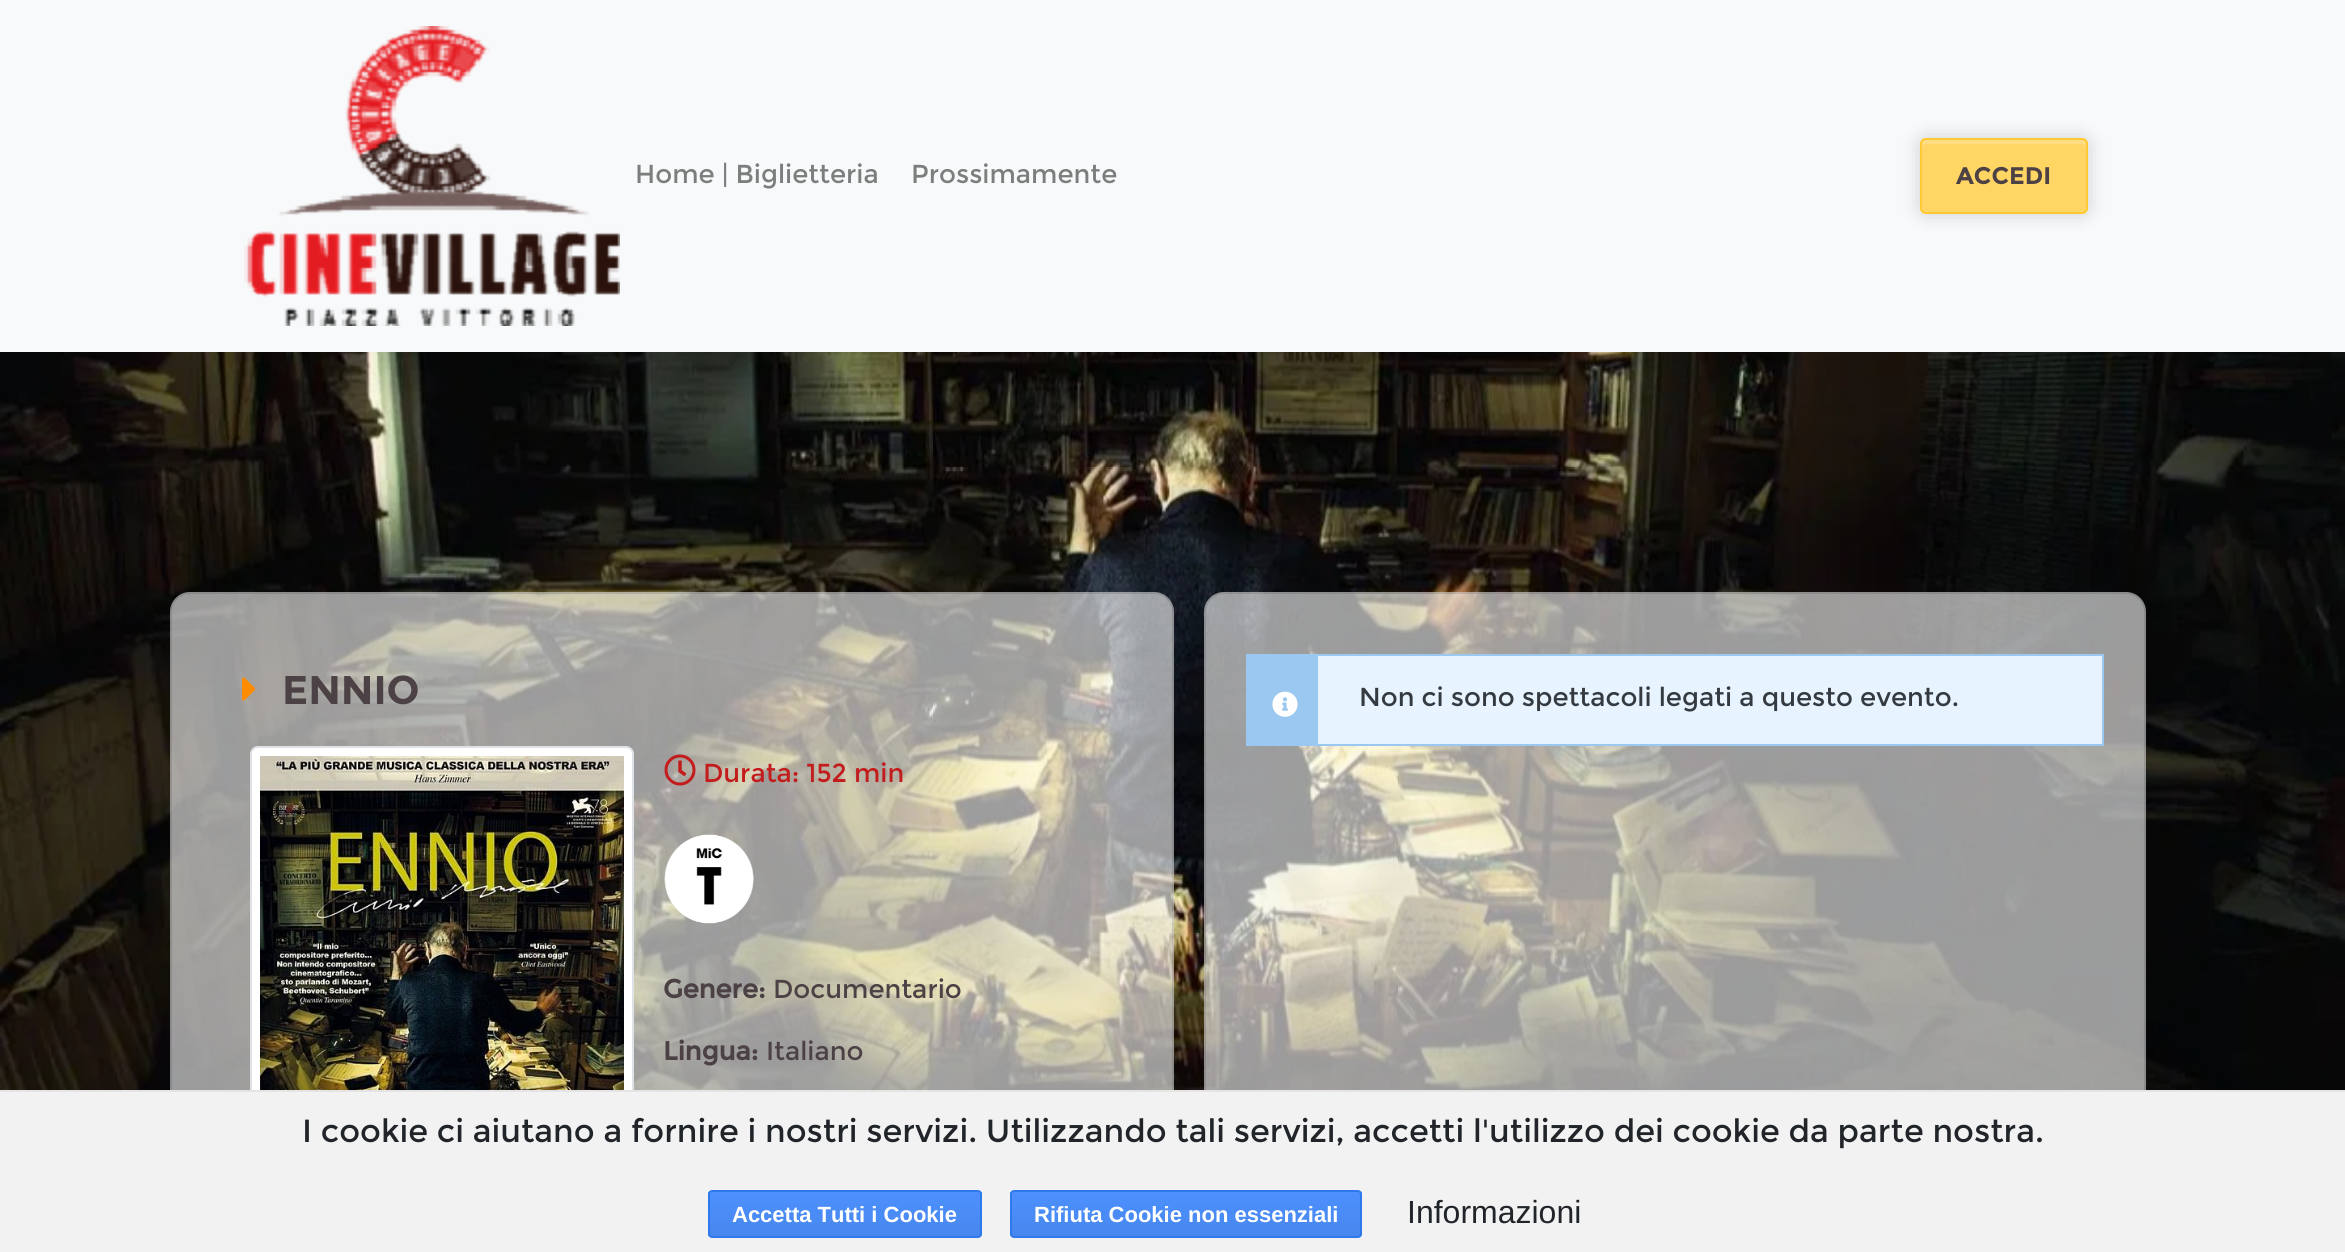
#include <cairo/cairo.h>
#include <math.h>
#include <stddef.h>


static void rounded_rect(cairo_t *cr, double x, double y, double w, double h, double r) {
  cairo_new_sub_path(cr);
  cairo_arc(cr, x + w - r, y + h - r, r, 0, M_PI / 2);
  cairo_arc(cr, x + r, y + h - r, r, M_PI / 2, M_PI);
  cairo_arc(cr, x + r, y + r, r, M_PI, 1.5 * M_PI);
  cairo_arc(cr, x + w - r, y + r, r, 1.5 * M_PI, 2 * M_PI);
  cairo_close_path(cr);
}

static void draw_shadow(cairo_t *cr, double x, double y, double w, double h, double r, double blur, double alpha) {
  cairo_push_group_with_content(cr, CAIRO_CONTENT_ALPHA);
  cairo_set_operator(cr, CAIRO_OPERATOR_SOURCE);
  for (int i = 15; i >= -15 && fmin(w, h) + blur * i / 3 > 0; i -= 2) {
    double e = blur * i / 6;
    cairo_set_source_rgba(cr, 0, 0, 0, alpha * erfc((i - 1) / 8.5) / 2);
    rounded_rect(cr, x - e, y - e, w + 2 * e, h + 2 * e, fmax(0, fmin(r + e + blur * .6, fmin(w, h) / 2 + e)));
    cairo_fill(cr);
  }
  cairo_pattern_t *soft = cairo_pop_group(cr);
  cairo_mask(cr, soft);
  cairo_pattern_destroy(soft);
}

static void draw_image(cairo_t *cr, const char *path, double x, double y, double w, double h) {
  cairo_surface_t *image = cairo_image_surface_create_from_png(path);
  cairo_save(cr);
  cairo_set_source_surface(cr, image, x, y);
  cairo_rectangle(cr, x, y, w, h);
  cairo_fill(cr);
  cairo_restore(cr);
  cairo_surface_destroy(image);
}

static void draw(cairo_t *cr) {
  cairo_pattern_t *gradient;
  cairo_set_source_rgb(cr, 1, 1, 1);
  cairo_paint(cr);
  cairo_set_source_rgb(cr, 248 / 255.0, 249 / 255.0, 250 / 255.0);
  cairo_rectangle(cr, 0, 0, 2345, 352);
  cairo_fill(cr);
  draw_image(cr, "images/1.png", 244, 26, 376, 300);
  cairo_set_source_rgb(cr, 0, 0, 0);
  draw_shadow(cr, 1920, 138, 168, 76, 6, 10, 0.16);
  cairo_set_source_rgb(cr, 1, 213 / 255.0, 100 / 255.0);
  rounded_rect(cr, 1920, 138, 168, 76, 6);
  cairo_fill(cr);
  cairo_set_source_rgb(cr, 1, 221 / 255.0, 131 / 255.0);
  cairo_new_path(cr);
  cairo_move_to(cr, 1926, 144);
  cairo_line_to(cr, 2082, 144);
  cairo_curve_to(cr, 2084, 144, 2086, 146, 2086, 148);
  cairo_line_to(cr, 2086, 144);
  cairo_curve_to(cr, 2086, 142, 2084, 140, 2082, 140);
  cairo_line_to(cr, 1926, 140);
  cairo_curve_to(cr, 1924, 140, 1922, 142, 1922, 144);
  cairo_line_to(cr, 1922, 148);
  cairo_curve_to(cr, 1922, 146, 1924, 144, 1926, 144);
  cairo_close_path(cr);
  cairo_fill(cr);
  rounded_rect(cr, 1921, 139, 166, 74, 5);
  cairo_set_source_rgb(cr, 1, 201 / 255.0, 54 / 255.0);
  cairo_stroke(cr);
  draw_image(cr, "images/2.png", 0, 352, 2345, 738);
  cairo_set_source_rgba(cr, 1, 1, 1, 0.6);
  rounded_rect(cr, 170, 592, 1004, 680, 20);
  cairo_fill(cr);
  rounded_rect(cr, 171, 593, 1002, 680, 19);
  cairo_set_source_rgba(cr, 0, 0, 0, 0.12);
  cairo_stroke(cr);
  draw_image(cr, "images/3.png", 242, 677, 14, 24);
  cairo_set_source_rgb(cr, 1, 1, 1);
  rounded_rect(cr, 251, 747, 382, 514, 7);
  cairo_fill_preserve(cr);
  cairo_set_source_rgb(cr, 222 / 255.0, 226 / 255.0, 230 / 255.0);
  cairo_stroke(cr);
  draw_image(cr, "images/4.png", 260, 756, 364, 334);
  draw_image(cr, "images/5.png", 664, 754, 32, 32);
  draw_image(cr, "images/6.png", 664, 834, 90, 90);
  cairo_set_source_rgba(cr, 1, 1, 1, 0.6);
  rounded_rect(cr, 1204, 592, 942, 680, 20);
  cairo_fill(cr);
  rounded_rect(cr, 1205, 593, 940, 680, 19);
  cairo_set_source_rgba(cr, 0, 0, 0, 0.12);
  cairo_stroke(cr);
  cairo_set_source_rgb(cr, 231 / 255.0, 244 / 255.0, 1);
  cairo_rectangle(cr, 1318, 656, 784, 88);
  cairo_fill(cr);
  cairo_rectangle(cr, 1247, 655, 856, 90);
  cairo_set_source_rgb(cr, 154 / 255.0, 200 / 255.0, 241 / 255.0);
  cairo_stroke(cr);
  cairo_rectangle(cr, 1248, 656, 70, 88);
  cairo_fill(cr);
  draw_image(cr, "images/7.png", 1272, 691, 26, 26);
  cairo_set_source_rgb(cr, 242 / 255.0, 242 / 255.0, 242 / 255.0);
  cairo_rectangle(cr, 0, 1092, 2345, 160);
  cairo_fill(cr);
  cairo_set_source_rgb(cr, 228 / 255.0, 228 / 255.0, 228 / 255.0);
  cairo_rectangle(cr, 0, 1090, 2345, 2);
  cairo_fill(cr);
  cairo_save(cr);
  rounded_rect(cr, 708, 1190, 274, 48, 4);
  cairo_clip(cr);
  gradient = cairo_pattern_create_linear(845, 1192, 845, 1236);
  cairo_pattern_add_color_stop_rgba(gradient, 0, 77 / 255.0, 144 / 255.0, 254 / 255.0, 1);
  cairo_pattern_add_color_stop_rgba(gradient, 1, 71 / 255.0, 135 / 255.0, 237 / 255.0, 1);
  cairo_set_source(cr, gradient);
  cairo_pattern_destroy(gradient);
  cairo_rectangle(cr, 708, 1192, 274, 44);
  cairo_fill(cr);
  cairo_restore(cr);
  rounded_rect(cr, 709, 1191, 272, 46, 3);
  cairo_set_source_rgb(cr, 48 / 255.0, 121 / 255.0, 237 / 255.0);
  cairo_stroke(cr);
  cairo_save(cr);
  rounded_rect(cr, 1010, 1190, 352, 48, 4);
  cairo_clip(cr);
  gradient = cairo_pattern_create_linear(1186, 1192, 1186, 1236);
  cairo_pattern_add_color_stop_rgba(gradient, 0, 77 / 255.0, 144 / 255.0, 254 / 255.0, 1);
  cairo_pattern_add_color_stop_rgba(gradient, 1, 71 / 255.0, 135 / 255.0, 237 / 255.0, 1);
  cairo_set_source(cr, gradient);
  cairo_pattern_destroy(gradient);
  cairo_rectangle(cr, 1010, 1192, 352, 44);
  cairo_fill(cr);
  cairo_restore(cr);
  rounded_rect(cr, 1011, 1191, 350, 46, 3);
  cairo_stroke(cr);
  cairo_select_font_face(cr, "Montserrat", CAIRO_FONT_SLANT_NORMAL, CAIRO_FONT_WEIGHT_NORMAL);
  cairo_set_font_size(cr, 26);
  cairo_set_source_rgb(cr, 124 / 255.0, 125 / 255.0, 125 / 255.0);
  cairo_move_to(cr, 635, 183);
  cairo_show_text(cr, "Home | Biglietteria");
  cairo_move_to(cr, 911, 183);
  cairo_show_text(cr, "Prossimamente");
  cairo_select_font_face(cr, "Montserrat", CAIRO_FONT_SLANT_NORMAL, CAIRO_FONT_WEIGHT_BOLD);
  cairo_set_font_size(cr, 24);
  cairo_set_source_rgb(cr, 76 / 255.0, 65 / 255.0, 69 / 255.0);
  cairo_move_to(cr, 1956, 184);
  cairo_show_text(cr, "ACCEDI");
  cairo_set_font_size(cr, 40);
  cairo_move_to(cr, 282, 704);
  cairo_show_text(cr, "ENNIO");
  cairo_select_font_face(cr, "Montserrat", CAIRO_FONT_SLANT_NORMAL, CAIRO_FONT_WEIGHT_NORMAL);
  cairo_set_font_size(cr, 26);
  cairo_set_source_rgb(cr, 195 / 255.0, 28 / 255.0, 29 / 255.0);
  cairo_move_to(cr, 703, 782);
  cairo_show_text(cr, "Durata: 152 min");
  cairo_select_font_face(cr, "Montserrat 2", CAIRO_FONT_SLANT_NORMAL, CAIRO_FONT_WEIGHT_BOLD);
  cairo_set_source_rgb(cr, 76 / 255.0, 65 / 255.0, 69 / 255.0);
  cairo_move_to(cr, 663, 998);
  cairo_show_text(cr, "Genere:");
  cairo_select_font_face(cr, "Montserrat", CAIRO_FONT_SLANT_NORMAL, CAIRO_FONT_WEIGHT_NORMAL);
  cairo_move_to(cr, 773, 998);
  cairo_show_text(cr, "Documentario");
  cairo_select_font_face(cr, "Montserrat 2", CAIRO_FONT_SLANT_NORMAL, CAIRO_FONT_WEIGHT_BOLD);
  cairo_move_to(cr, 663, 1060);
  cairo_show_text(cr, "Lingua:");
  cairo_select_font_face(cr, "Montserrat", CAIRO_FONT_SLANT_NORMAL, CAIRO_FONT_WEIGHT_NORMAL);
  cairo_move_to(cr, 766, 1060);
  cairo_show_text(cr, "Italiano");
  cairo_set_source_rgb(cr, 52 / 255.0, 58 / 255.0, 64 / 255.0);
  cairo_move_to(cr, 1359, 706);
  cairo_show_text(cr, "Non ci sono spettacoli legati a questo evento.");
  cairo_set_font_size(cr, 32);
  cairo_set_source_rgb(cr, 33 / 255.0, 37 / 255.0, 41 / 255.0);
  cairo_move_to(cr, 302, 1142);
  cairo_show_text(cr, "I cookie ci aiutano a fornire i nostri servizi. Utilizzando tali servizi, accetti l'utilizzo dei cookie da parte nostra.");
  cairo_select_font_face(cr, "Liberation Sans", CAIRO_FONT_SLANT_NORMAL, CAIRO_FONT_WEIGHT_BOLD);
  cairo_set_font_size(cr, 22);
  cairo_set_source_rgb(cr, 1, 1, 1);
  cairo_move_to(cr, 732, 1222);
  cairo_show_text(cr, "Accetta Tutti i Cookie");
  cairo_move_to(cr, 1034, 1222);
  cairo_show_text(cr, "Rifiuta Cookie non essenziali");
  cairo_select_font_face(cr, "Liberation Sans", CAIRO_FONT_SLANT_NORMAL, CAIRO_FONT_WEIGHT_NORMAL);
  cairo_set_font_size(cr, 32);
  cairo_set_source_rgb(cr, 33 / 255.0, 37 / 255.0, 41 / 255.0);
  cairo_move_to(cr, 1407, 1223);
  cairo_show_text(cr, "Informazioni");
}

int main(void) {
  cairo_surface_t *surface = cairo_image_surface_create(CAIRO_FORMAT_RGB24, 2345, 1252);
  cairo_t *cr = cairo_create(surface);
  cairo_font_options_t *options = cairo_font_options_create();
  cairo_font_options_set_hint_metrics(options, CAIRO_HINT_METRICS_OFF);
  cairo_font_options_set_hint_style(options, CAIRO_HINT_STYLE_NONE);
  cairo_set_font_options(cr, options);
  cairo_set_miter_limit(cr, 4);
  draw(cr);
  cairo_surface_write_to_png(surface, "out.png");
  cairo_font_options_destroy(options);
  cairo_destroy(cr);
  cairo_surface_destroy(surface);
  return 0;
}
